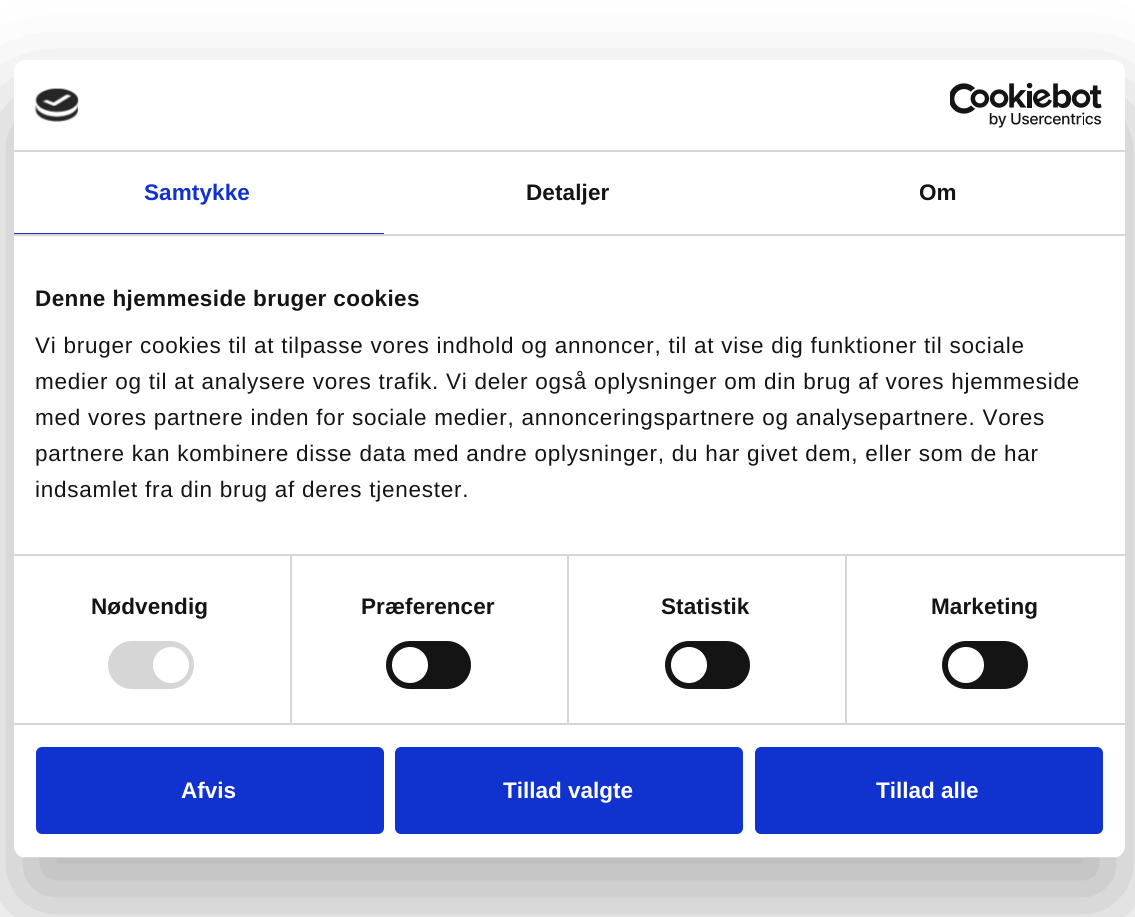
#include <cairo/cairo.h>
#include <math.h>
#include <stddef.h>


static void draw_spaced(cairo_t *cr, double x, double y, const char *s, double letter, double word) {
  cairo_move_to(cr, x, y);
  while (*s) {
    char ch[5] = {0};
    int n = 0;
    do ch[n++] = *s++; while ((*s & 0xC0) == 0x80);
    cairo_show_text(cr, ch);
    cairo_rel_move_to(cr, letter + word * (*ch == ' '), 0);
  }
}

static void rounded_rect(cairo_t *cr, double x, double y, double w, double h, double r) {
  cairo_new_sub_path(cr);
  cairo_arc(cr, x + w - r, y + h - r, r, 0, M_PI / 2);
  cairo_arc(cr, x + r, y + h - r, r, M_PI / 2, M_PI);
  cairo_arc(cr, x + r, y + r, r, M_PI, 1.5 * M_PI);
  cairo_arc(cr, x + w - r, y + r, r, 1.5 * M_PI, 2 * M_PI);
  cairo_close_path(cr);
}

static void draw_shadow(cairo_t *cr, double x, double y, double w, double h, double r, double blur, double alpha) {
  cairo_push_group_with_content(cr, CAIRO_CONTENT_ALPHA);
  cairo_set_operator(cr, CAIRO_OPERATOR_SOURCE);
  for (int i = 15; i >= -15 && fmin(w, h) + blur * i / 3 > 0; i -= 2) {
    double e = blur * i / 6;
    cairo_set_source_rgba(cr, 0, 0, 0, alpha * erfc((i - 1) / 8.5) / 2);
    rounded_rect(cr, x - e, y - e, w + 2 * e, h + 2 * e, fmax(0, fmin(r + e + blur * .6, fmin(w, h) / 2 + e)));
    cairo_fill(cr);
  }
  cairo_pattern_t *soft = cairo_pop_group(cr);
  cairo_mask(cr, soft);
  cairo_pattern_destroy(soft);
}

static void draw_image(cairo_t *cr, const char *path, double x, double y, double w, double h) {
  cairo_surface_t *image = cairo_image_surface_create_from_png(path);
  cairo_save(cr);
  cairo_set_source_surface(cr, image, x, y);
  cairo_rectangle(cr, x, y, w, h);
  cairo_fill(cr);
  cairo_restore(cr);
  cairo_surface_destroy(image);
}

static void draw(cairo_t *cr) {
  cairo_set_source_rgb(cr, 1, 1, 1);
  cairo_paint(cr);
  cairo_set_source_rgb(cr, 0, 0, 0);
  draw_shadow(cr, 14, 108, 1111, 798, 12, 51, 0.3);
  cairo_set_source_rgb(cr, 1, 1, 1);
  rounded_rect(cr, 14, 60, 1111, 798, 12);
  cairo_fill(cr);
  cairo_set_source_rgb(cr, 214 / 255.0, 214 / 255.0, 214 / 255.0);
  cairo_rectangle(cr, 14, 150, 1111, 2);
  cairo_fill(cr);
  draw_image(cr, "images/1.png", 34, 88, 45, 34);
  draw_image(cr, "images/2.png", 950, 83, 152, 45);
  cairo_rectangle(cr, 14, 234, 1111, 2);
  cairo_fill(cr);
  cairo_set_source_rgb(cr, 16 / 255.0, 50 / 255.0, 207 / 255.0);
  cairo_rectangle(cr, 14, 233, 370, 1);
  cairo_fill(cr);
  cairo_set_source_rgb(cr, 214 / 255.0, 214 / 255.0, 214 / 255.0);
  cairo_rectangle(cr, 290, 555, 2, 168);
  cairo_fill(cr);
  cairo_rectangle(cr, 567, 555, 2, 168);
  cairo_fill(cr);
  cairo_rectangle(cr, 845, 555, 2, 168);
  cairo_fill(cr);
  cairo_rectangle(cr, 14, 554, 1111, 2);
  cairo_fill(cr);
  cairo_rectangle(cr, 14, 723, 1111, 2);
  cairo_fill(cr);
  rounded_rect(cr, 108, 641, 86, 48, 24);
  cairo_fill(cr);
  cairo_set_source_rgb(cr, 1, 1, 1);
  cairo_arc(cr, 171, 665, 18, 0, 2 * M_PI);
  cairo_fill(cr);
  cairo_set_source_rgb(cr, 20 / 255.0, 20 / 255.0, 20 / 255.0);
  rounded_rect(cr, 386, 641, 85, 48, 24);
  cairo_fill(cr);
  cairo_set_source_rgb(cr, 1, 1, 1);
  cairo_arc(cr, 410, 665, 18, 0, 2 * M_PI);
  cairo_fill(cr);
  cairo_set_source_rgb(cr, 20 / 255.0, 20 / 255.0, 20 / 255.0);
  rounded_rect(cr, 665, 641, 85, 48, 24);
  cairo_fill(cr);
  cairo_set_source_rgb(cr, 1, 1, 1);
  cairo_arc(cr, 689, 665, 18, 0, 2 * M_PI);
  cairo_fill(cr);
  cairo_set_source_rgb(cr, 20 / 255.0, 20 / 255.0, 20 / 255.0);
  rounded_rect(cr, 942, 641, 86, 48, 24);
  cairo_fill(cr);
  cairo_set_source_rgb(cr, 1, 1, 1);
  cairo_arc(cr, 966, 665, 18, 0, 2 * M_PI);
  cairo_fill(cr);
  cairo_save(cr);
  rounded_rect(cr, 14, 60, 1111, 798, 12);
  cairo_clip(cr);
  cairo_set_source_rgb(cr, 214 / 255.0, 214 / 255.0, 214 / 255.0);
  cairo_rectangle(cr, 14, 857, 1111, 1);
  cairo_fill(cr);
  cairo_restore(cr);
  cairo_set_source_rgb(cr, 16 / 255.0, 50 / 255.0, 207 / 255.0);
  rounded_rect(cr, 37.5, 748.5, 345, 84, 4.5);
  cairo_fill_preserve(cr);
  cairo_set_line_width(cr, 3);
  cairo_stroke(cr);
  rounded_rect(cr, 396.5, 748.5, 345, 84, 4.5);
  cairo_fill_preserve(cr);
  cairo_stroke(cr);
  rounded_rect(cr, 756.5, 748.5, 345, 84, 4.5);
  cairo_fill_preserve(cr);
  cairo_stroke(cr);
  cairo_select_font_face(cr, "Liberation Sans", CAIRO_FONT_SLANT_NORMAL, CAIRO_FONT_WEIGHT_BOLD);
  cairo_set_font_size(cr, 22.5);
  draw_spaced(cr, 144, 200, "Samtykke", 0.1, 0);
  cairo_set_source_rgb(cr, 20 / 255.0, 20 / 255.0, 20 / 255.0);
  draw_spaced(cr, 526, 200, "Detaljer", 0.1, 0);
  draw_spaced(cr, 919, 200, "Om", 0.1, 0);
  draw_spaced(cr, 35, 306, "Denne hjemmeside bruger cookies", 0.4, 0);
  cairo_select_font_face(cr, "Liberation Sans", CAIRO_FONT_SLANT_NORMAL, CAIRO_FONT_WEIGHT_NORMAL);
  draw_spaced(cr, 35, 353, "Vi bruger cookies til at tilpasse vores indhold og annoncer, til at vise dig funktioner til sociale", 0.75, 0);
  draw_spaced(cr, 35, 389, "medier og til at analysere vores trafik. Vi deler også oplysninger om din brug af vores hjemmeside", 0.75, 0);
  draw_spaced(cr, 35, 425, "med vores partnere inden for sociale medier, annonceringspartnere og analysepartnere. Vores", 0.75, 0);
  draw_spaced(cr, 35, 461, "partnere kan kombinere disse data med andre oplysninger, du har givet dem, eller som de har", 0.75, 0);
  draw_spaced(cr, 35, 497, "indsamlet fra din brug af deres tjenester.", 0.75, 0);
  cairo_select_font_face(cr, "Liberation Sans", CAIRO_FONT_SLANT_NORMAL, CAIRO_FONT_WEIGHT_BOLD);
  draw_spaced(cr, 91, 614, "Nødvendig", 0.1, 0);
  draw_spaced(cr, 361, 614, "Præferencer", 0.1, 0);
  draw_spaced(cr, 661, 614, "Statistik", 0.1, 0);
  draw_spaced(cr, 931, 614, "Marketing", 0.1, 0);
  cairo_set_source_rgb(cr, 1, 1, 1);
  cairo_move_to(cr, 181, 798);
  cairo_show_text(cr, "Afvis");
  cairo_move_to(cr, 503, 798);
  cairo_show_text(cr, "Tillad valgte");
  cairo_move_to(cr, 876, 798);
  cairo_show_text(cr, "Tillad alle");
}

int main(void) {
  cairo_surface_t *surface = cairo_image_surface_create(CAIRO_FORMAT_RGB24, 1135, 917);
  cairo_t *cr = cairo_create(surface);
  cairo_font_options_t *options = cairo_font_options_create();
  cairo_font_options_set_hint_metrics(options, CAIRO_HINT_METRICS_OFF);
  cairo_font_options_set_hint_style(options, CAIRO_HINT_STYLE_NONE);
  cairo_set_font_options(cr, options);
  cairo_set_miter_limit(cr, 4);
  draw(cr);
  cairo_surface_write_to_png(surface, "out.png");
  cairo_font_options_destroy(options);
  cairo_destroy(cr);
  cairo_surface_destroy(surface);
  return 0;
}
